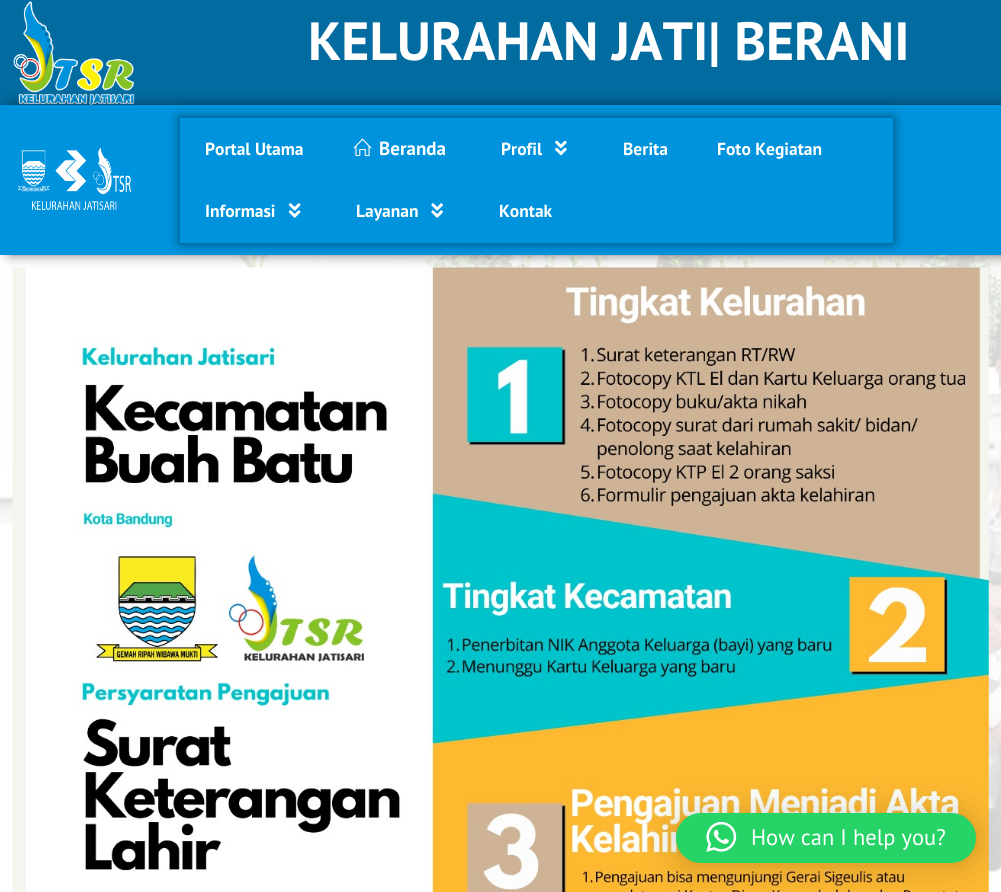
import math
import cairo

surface = cairo.ImageSurface(cairo.FORMAT_RGB24, 1001, 892)
ctx = cairo.Context(surface)
options = cairo.FontOptions()
options.set_hint_metrics(cairo.HINT_METRICS_OFF)
options.set_hint_style(cairo.HINT_STYLE_NONE)
ctx.set_font_options(options)
ctx.set_miter_limit(4)


def round_rect(x, y, w, h, r):
    ctx.new_sub_path()
    for i, (u, v) in enumerate([(x + w - r, y + h - r), (x + r, y + h - r), (x + r, y + r), (x + w - r, y + r)]):
        ctx.arc(u, v, r, i * math.pi / 2, (i + 1) * math.pi / 2)
    ctx.close_path()


def shadow(x, y, w, h, r, blur, alpha):
    ctx.push_group_with_content(cairo.CONTENT_ALPHA)
    ctx.set_operator(cairo.OPERATOR_SOURCE)
    for i in range(15, -16, -2):
        e = blur * i / 6
        if min(w, h) + 2 * e > 0:
            ctx.set_source_rgba(0, 0, 0, alpha * math.erfc((i - 1) / 8.5) / 2)
            round_rect(x - e, y - e, w + 2 * e, h + 2 * e, max(0, min(r + e + blur * .6, min(w, h) / 2 + e)))
            ctx.fill()
    ctx.mask(ctx.pop_group())


def picture(path, x, y, w, h):
    ctx.save()
    ctx.set_source_surface(cairo.ImageSurface.create_from_png(path), x, y)
    ctx.rectangle(x, y, w, h)
    ctx.fill()
    ctx.restore()


ctx.set_source_rgb(1, 1, 1)
ctx.paint()
picture("img1.png", 0, 255, 1001, 637)
ctx.set_source_rgb(0.008, 0.42, 0.627)
ctx.rectangle(0, 0, 1001, 105)
ctx.fill()
picture("img2.png", 13, 1, 122, 104)
ctx.select_font_face("PT Sans", cairo.FONT_SLANT_NORMAL, cairo.FONT_WEIGHT_BOLD)
ctx.set_font_size(53.75)
ctx.set_source_rgb(1, 1, 1)
ctx.move_to(308, 60)
ctx.show_text("KELURAHAN JATI| BERANI")
picture("img8.png", 12, 267, 977, 625)
ctx.set_source_rgb(0, 0, 0)
shadow(10, 105, 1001, 150, 0, 6, 0.5)
ctx.set_source_rgb(0, 0.576, 0.867)
ctx.rectangle(0, 105, 1001, 150)
ctx.fill()
picture("img3.png", 17, 147, 114, 63)
ctx.set_source_rgb(0, 0, 0)
shadow(180, 118, 713, 125, 0, 6, 0.5)
ctx.set_source_rgb(0, 0.576, 0.867)
ctx.rectangle(180, 118, 713, 125)
ctx.fill()
ctx.set_font_size(17.5)
ctx.set_source_rgb(1, 1, 1)
ctx.move_to(205, 155)
ctx.show_text("Portal Utama")
picture("img4.png", 353, 138, 19, 19)
ctx.set_font_size(19)
ctx.move_to(379, 155)
ctx.show_text("Beranda")
ctx.set_font_size(17.5)
ctx.move_to(501, 155)
ctx.show_text("Profil")
picture("img5.png", 555, 140, 12, 16)
ctx.move_to(623, 155)
ctx.show_text("Berita")
ctx.move_to(717, 155)
ctx.show_text("Foto Kegiatan")
ctx.move_to(205, 217)
ctx.show_text("Informasi")
picture("img6.png", 288, 203, 13, 15)
ctx.move_to(356, 217)
ctx.show_text("Layanan")
picture("img7.png", 431, 203, 12, 15)
ctx.move_to(499, 217)
ctx.show_text("Kontak")
ctx.set_source_rgb(0, 0, 0)
shadow(676, 815, 300, 50, 25, 20, 0.16)
shadow(676, 814, 300, 50, 25, 4, 0.06)
ctx.set_source_rgb(0.145, 0.827, 0.4)
round_rect(676, 813, 300, 50, 25)
ctx.fill()
picture("img9.png", 706, 821, 31, 31)
ctx.select_font_face("PT Sans")
ctx.set_font_size(22.5)
ctx.set_source_rgb(1, 1, 1)
ctx.move_to(751, 845)
ctx.show_text("How can I help you?")
surface.write_to_png("page.png")
